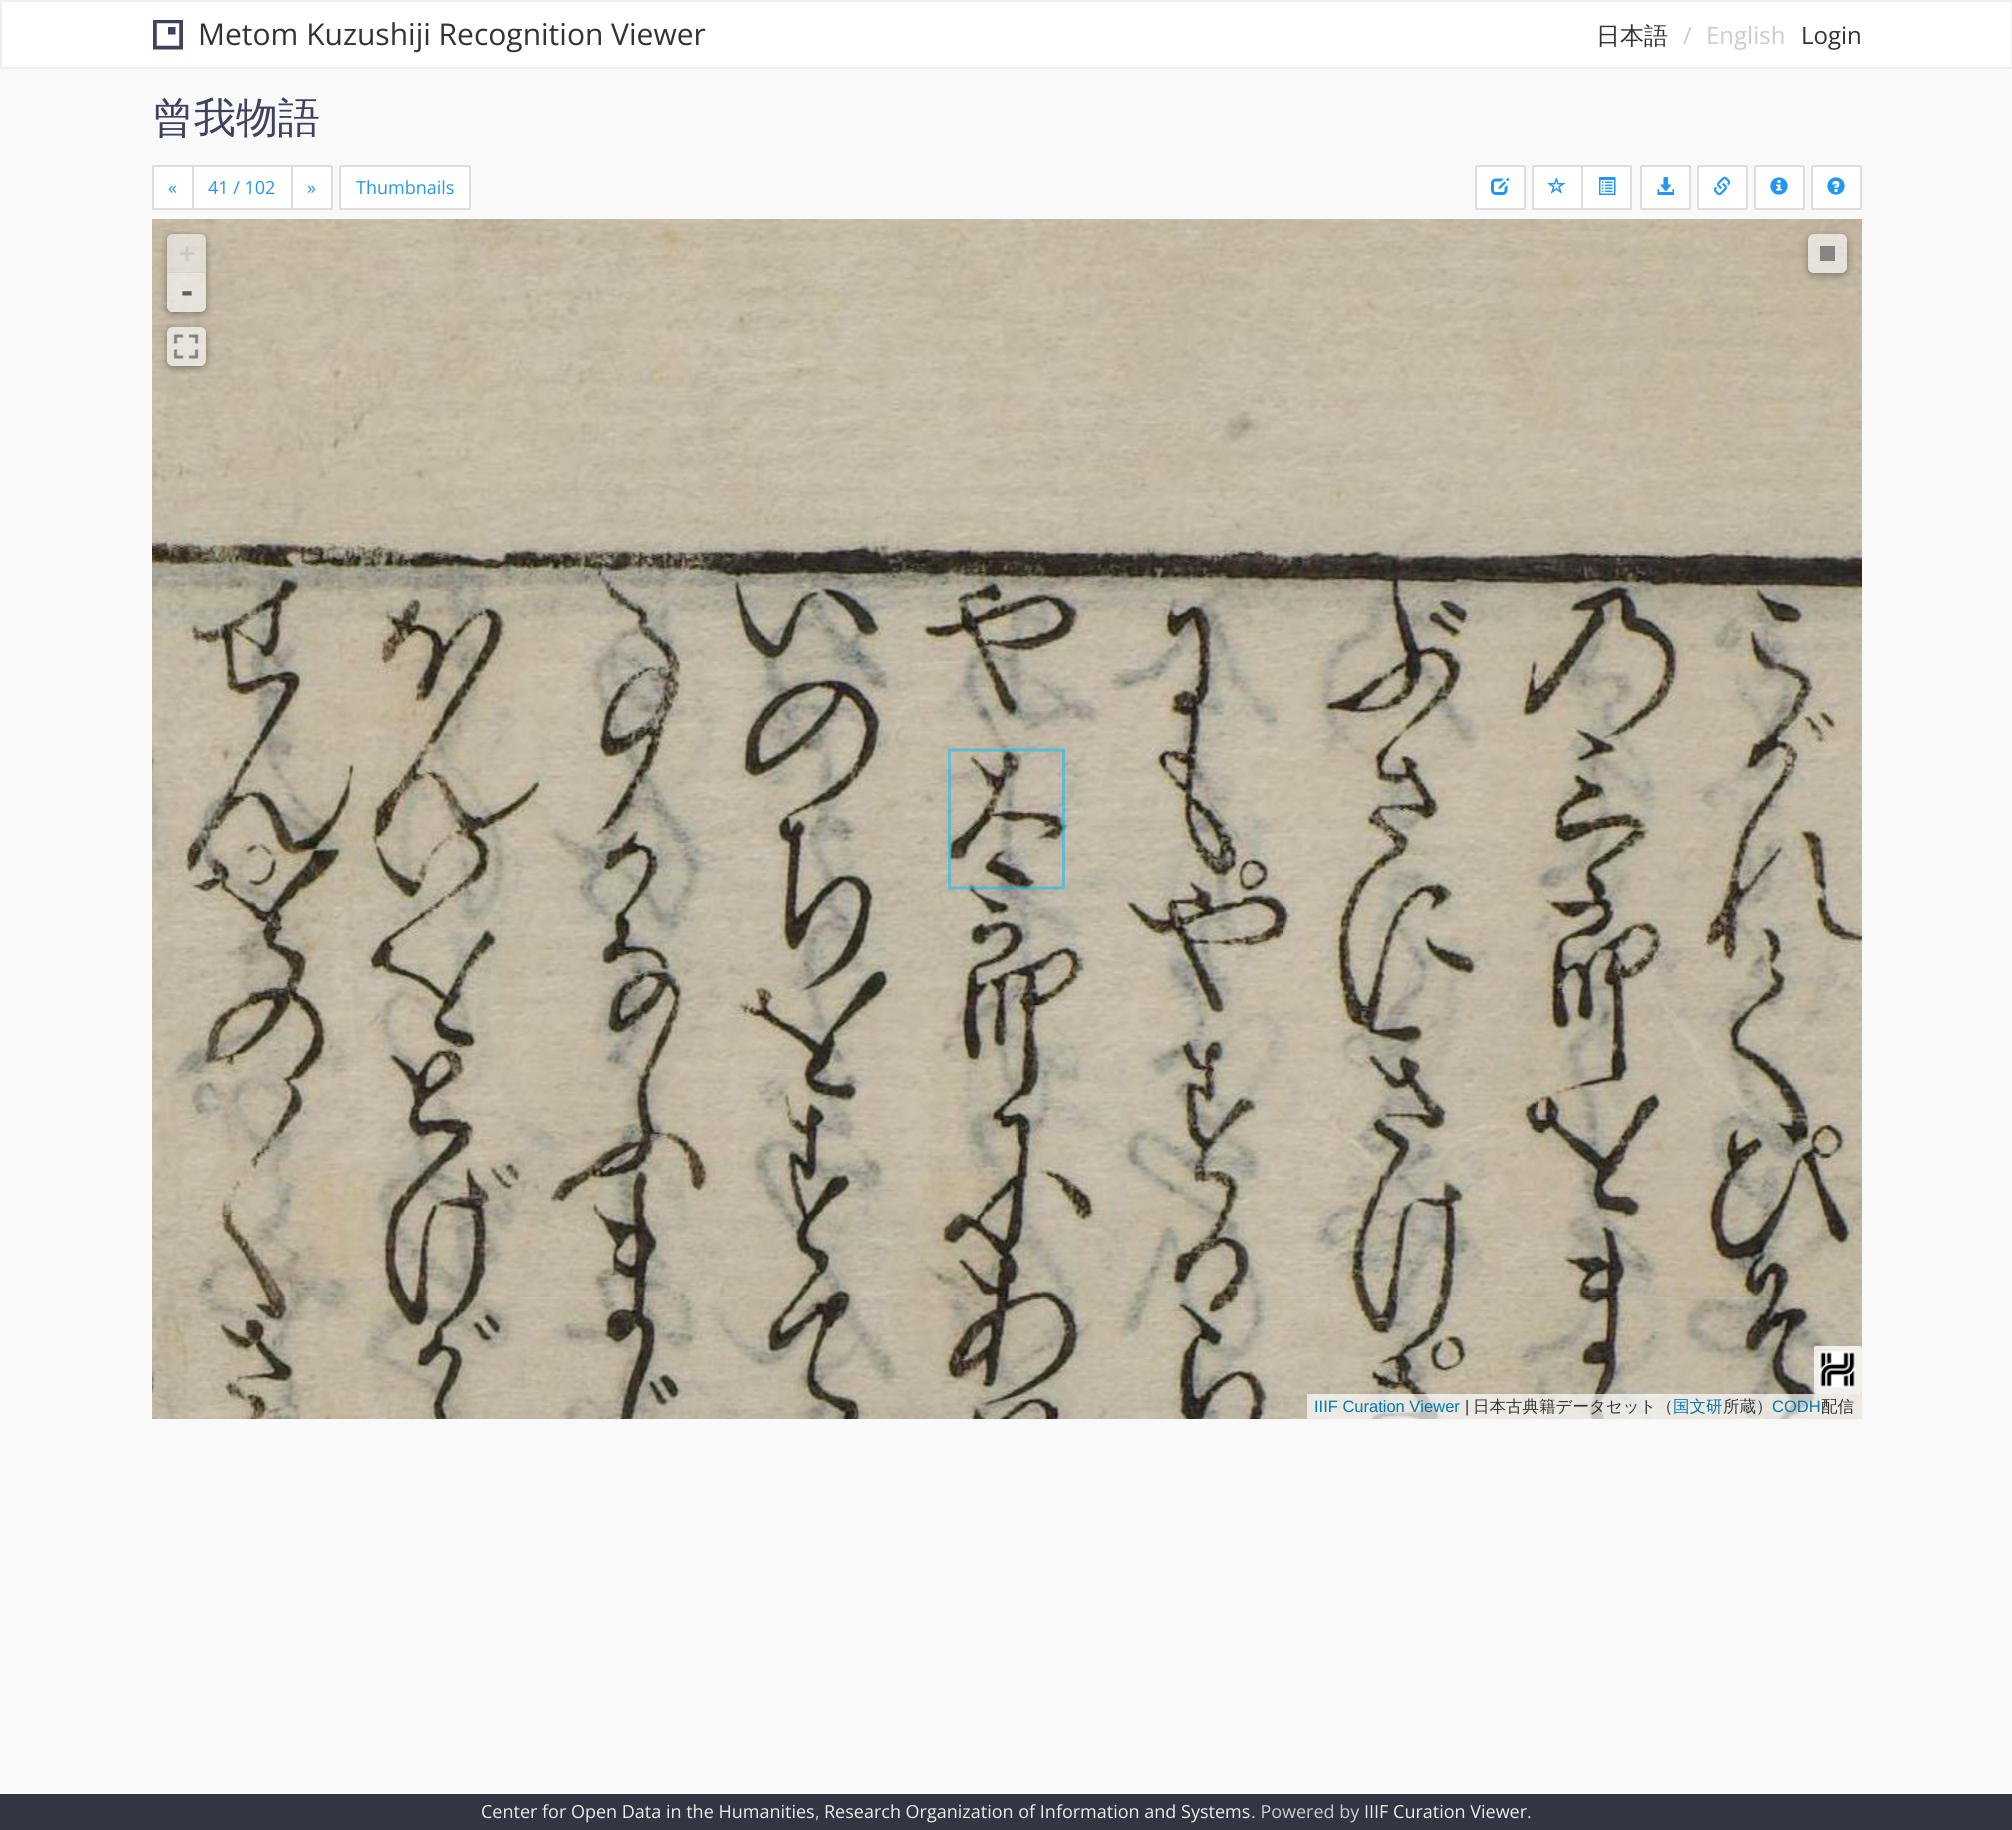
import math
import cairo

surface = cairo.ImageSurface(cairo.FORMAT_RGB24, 2012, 1830)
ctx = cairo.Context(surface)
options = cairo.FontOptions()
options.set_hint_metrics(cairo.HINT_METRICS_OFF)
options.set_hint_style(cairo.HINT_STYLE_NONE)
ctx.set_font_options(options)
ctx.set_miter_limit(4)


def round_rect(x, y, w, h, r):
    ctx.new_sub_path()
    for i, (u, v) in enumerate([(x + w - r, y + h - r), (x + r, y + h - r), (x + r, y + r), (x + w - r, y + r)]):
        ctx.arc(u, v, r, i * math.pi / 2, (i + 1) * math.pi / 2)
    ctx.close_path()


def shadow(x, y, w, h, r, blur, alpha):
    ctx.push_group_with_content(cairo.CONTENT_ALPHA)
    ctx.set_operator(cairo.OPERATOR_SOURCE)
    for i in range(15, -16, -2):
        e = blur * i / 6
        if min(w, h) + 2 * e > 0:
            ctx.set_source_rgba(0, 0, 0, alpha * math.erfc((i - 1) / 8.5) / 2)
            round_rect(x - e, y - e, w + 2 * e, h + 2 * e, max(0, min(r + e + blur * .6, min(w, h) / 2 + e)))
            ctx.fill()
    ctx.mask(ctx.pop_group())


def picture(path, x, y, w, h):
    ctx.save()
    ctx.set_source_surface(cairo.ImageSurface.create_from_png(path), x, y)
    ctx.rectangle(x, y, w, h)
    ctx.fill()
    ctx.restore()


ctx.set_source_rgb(0.976, 0.976, 0.976)
ctx.paint()
ctx.set_source_rgb(1, 1, 1)
round_rect(1, 1, 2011, 67, 2)
ctx.fill_preserve()
ctx.set_source_rgb(0.933, 0.933, 0.933)
ctx.stroke()
picture("img1.png", 153, 20, 30, 30)
ctx.select_font_face("Open Sans")
ctx.set_font_size(30)
ctx.set_source_rgb(0.2, 0.2, 0.2)
ctx.move_to(198, 45)
ctx.show_text("Metom Kuzushiji Recognition Viewer")
ctx.select_font_face("WenQuanYi Zen Hei Medium")
ctx.set_font_size(24)
ctx.move_to(1596, 44)
ctx.show_text("日本語")
ctx.select_font_face("Open Sans")
ctx.set_source_rgb(0.8, 0.8, 0.8)
ctx.move_to(1683, 44)
ctx.show_text("/")
ctx.move_to(1706, 44)
ctx.show_text("English")
ctx.set_source_rgb(0.2, 0.2, 0.2)
ctx.move_to(1801, 44)
ctx.show_text("Login")
ctx.select_font_face("WenQuanYi Zen Hei Medium")
ctx.set_font_size(42)
ctx.set_source_rgb(0.247, 0.255, 0.369)
ctx.move_to(152, 132)
ctx.show_text("曾我物語")
ctx.set_source_rgb(1, 1, 1)
ctx.new_path()
ctx.move_to(153.5, 166)
ctx.line_to(193, 166)
ctx.line_to(193, 209)
ctx.line_to(153.5, 209)
ctx.curve_to(153, 209, 153, 209, 153, 208.5)
ctx.line_to(153, 166.5)
ctx.curve_to(153, 166, 153, 166, 153.5, 166)
ctx.close_path()
ctx.fill_preserve()
ctx.set_source_rgb(0.867, 0.867, 0.867)
ctx.stroke()
ctx.select_font_face("Open Sans")
ctx.set_font_size(18)
ctx.set_source_rgb(0.129, 0.588, 0.953)
ctx.move_to(168, 194)
ctx.show_text("«")
ctx.set_source_rgb(1, 1, 1)
ctx.rectangle(193, 166, 99, 43)
ctx.fill_preserve()
ctx.set_source_rgb(0.867, 0.867, 0.867)
ctx.stroke()
ctx.set_source_rgb(0.129, 0.588, 0.953)
ctx.move_to(208, 194)
ctx.show_text("41 / 102")
ctx.set_source_rgb(1, 1, 1)
ctx.new_path()
ctx.move_to(292, 166)
ctx.line_to(331.5, 166)
ctx.curve_to(332, 166, 332, 166, 332, 166.5)
ctx.line_to(332, 208.5)
ctx.curve_to(332, 209, 332, 209, 331.5, 209)
ctx.line_to(292, 209)
ctx.close_path()
ctx.fill_preserve()
ctx.set_source_rgb(0.867, 0.867, 0.867)
ctx.stroke()
ctx.set_source_rgb(0.129, 0.588, 0.953)
ctx.move_to(307, 194)
ctx.show_text("»")
ctx.set_source_rgb(1, 1, 1)
round_rect(340, 166, 130, 43, 0.5)
ctx.fill_preserve()
ctx.set_source_rgb(0.867, 0.867, 0.867)
ctx.stroke()
ctx.set_source_rgb(0.129, 0.588, 0.953)
ctx.move_to(356, 194)
ctx.show_text("Thumbnails")
ctx.set_source_rgb(1, 1, 1)
round_rect(1476, 166, 49, 43, 0.5)
ctx.fill_preserve()
ctx.set_source_rgb(0.867, 0.867, 0.867)
ctx.stroke()
picture("img2.png", 1491, 178, 19, 17)
ctx.set_source_rgb(1, 1, 1)
ctx.new_path()
ctx.move_to(1533.5, 166)
ctx.line_to(1582, 166)
ctx.line_to(1582, 209)
ctx.line_to(1533.5, 209)
ctx.curve_to(1533, 209, 1533, 209, 1533, 208.5)
ctx.line_to(1533, 166.5)
ctx.curve_to(1533, 166, 1533, 166, 1533.5, 166)
ctx.close_path()
ctx.fill_preserve()
ctx.set_source_rgb(0.867, 0.867, 0.867)
ctx.stroke()
picture("img3.png", 1547, 177, 19, 17)
ctx.set_source_rgb(1, 1, 1)
ctx.new_path()
ctx.move_to(1582, 166)
ctx.line_to(1630.5, 166)
ctx.curve_to(1631, 166, 1631, 166, 1631, 166.5)
ctx.line_to(1631, 208.5)
ctx.curve_to(1631, 209, 1631, 209, 1630.5, 209)
ctx.line_to(1582, 209)
ctx.close_path()
ctx.fill_preserve()
ctx.set_source_rgb(0.867, 0.867, 0.867)
ctx.stroke()
picture("img4.png", 1599, 177, 17, 18)
ctx.set_source_rgb(1, 1, 1)
round_rect(1641, 166, 49, 43, 0.5)
ctx.fill_preserve()
ctx.set_source_rgb(0.867, 0.867, 0.867)
ctx.stroke()
picture("img5.png", 1657, 177, 17, 18)
ctx.set_source_rgb(1, 1, 1)
round_rect(1698, 166, 49, 43, 0.5)
ctx.fill_preserve()
ctx.set_source_rgb(0.867, 0.867, 0.867)
ctx.stroke()
picture("img6.png", 1713, 176, 18, 20)
ctx.set_source_rgb(1, 1, 1)
round_rect(1755, 166, 49, 43, 0.5)
ctx.fill_preserve()
ctx.set_source_rgb(0.867, 0.867, 0.867)
ctx.stroke()
picture("img7.png", 1770, 177, 18, 18)
ctx.set_source_rgb(1, 1, 1)
round_rect(1812, 166, 49, 43, 0.5)
ctx.fill_preserve()
ctx.set_source_rgb(0.867, 0.867, 0.867)
ctx.stroke()
picture("img8.png", 1827, 177, 18, 18)
picture("img9.png", 152, 219, 1131, 1079)
picture("img10.png", 1283, 219, 579, 1079)
picture("img11.png", 152, 1297, 1131, 122)
picture("img12.png", 152, 1297, 1131, 1)
picture("img13.png", 159, 1297, 1118, 1)
picture("img14.png", 1283, 1297, 579, 122)
picture("img15.png", 1283, 1297, 579, 1)
picture("img16.png", 1283, 1297, 579, 1)
ctx.new_path()
ctx.move_to(949.5, 888)
ctx.line_to(949.5, 750)
ctx.line_to(1063.5, 750)
ctx.line_to(1063.5, 888)
ctx.close_path()
ctx.set_source_rgba(0, 0.749, 1, 0.5)
ctx.set_line_width(3)
ctx.set_line_cap(cairo.LINE_CAP_ROUND)
ctx.set_line_join(cairo.LINE_JOIN_ROUND)
ctx.stroke()
ctx.save()
ctx.set_fill_rule(cairo.FILL_RULE_EVEN_ODD)
ctx.new_path()
ctx.move_to(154, 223)
ctx.line_to(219, 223)
ctx.line_to(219, 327)
ctx.line_to(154, 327)
ctx.close_path()
ctx.move_to(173, 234)
ctx.line_to(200, 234)
ctx.curve_to(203.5, 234, 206, 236.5, 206, 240)
ctx.line_to(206, 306)
ctx.curve_to(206, 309.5, 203.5, 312, 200, 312)
ctx.line_to(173, 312)
ctx.curve_to(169.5, 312, 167, 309.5, 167, 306)
ctx.line_to(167, 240)
ctx.curve_to(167, 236.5, 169.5, 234, 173, 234)
ctx.close_path()
ctx.clip()
ctx.set_source_rgb(0, 0, 0)
shadow(167, 236, 39, 78, 6, 4, 0.38)
ctx.restore()
ctx.set_source_rgba(0.957, 0.957, 0.957, 0.59)
ctx.new_path()
ctx.move_to(173, 234)
ctx.line_to(200, 234)
ctx.curve_to(203.5, 234, 206, 236.5, 206, 240)
ctx.line_to(206, 273)
ctx.line_to(167, 273)
ctx.line_to(167, 240)
ctx.curve_to(167, 236.5, 169.5, 234, 173, 234)
ctx.close_path()
ctx.fill()
ctx.set_source_rgba(0.8, 0.8, 0.8, 0.59)
ctx.rectangle(167, 272, 39, 2)
ctx.fill()
ctx.select_font_face("DejaVu Sans Mono", cairo.FONT_SLANT_NORMAL, cairo.FONT_WEIGHT_BOLD)
ctx.set_font_size(27)
ctx.set_source_rgb(0.796, 0.788, 0.773)
ctx.move_to(179, 262)
ctx.show_text("+")
ctx.set_source_rgba(1, 1, 1, 0.59)
ctx.new_path()
ctx.move_to(167, 273)
ctx.line_to(206, 273)
ctx.line_to(206, 306)
ctx.curve_to(206, 309.5, 203.5, 312, 200, 312)
ctx.line_to(173, 312)
ctx.curve_to(169.5, 312, 167, 309.5, 167, 306)
ctx.close_path()
ctx.fill()
ctx.set_font_size(30)
ctx.set_source_rgb(0.373, 0.365, 0.353)
ctx.move_to(178, 302)
ctx.show_text("-")
ctx.save()
ctx.set_fill_rule(cairo.FILL_RULE_EVEN_ODD)
ctx.new_path()
ctx.move_to(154, 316)
ctx.line_to(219, 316)
ctx.line_to(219, 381)
ctx.line_to(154, 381)
ctx.close_path()
ctx.move_to(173, 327)
ctx.line_to(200, 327)
ctx.curve_to(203.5, 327, 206, 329.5, 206, 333)
ctx.line_to(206, 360)
ctx.curve_to(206, 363.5, 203.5, 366, 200, 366)
ctx.line_to(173, 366)
ctx.curve_to(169.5, 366, 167, 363.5, 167, 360)
ctx.line_to(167, 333)
ctx.curve_to(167, 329.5, 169.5, 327, 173, 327)
ctx.close_path()
ctx.clip()
ctx.set_source_rgb(0, 0, 0)
shadow(167, 329, 39, 39, 6, 4, 0.38)
ctx.restore()
ctx.set_source_rgba(1, 1, 1, 0.59)
round_rect(167, 327, 39, 39, 6)
ctx.fill()
picture("img17.png", 173, 334, 26, 25)
ctx.save()
ctx.set_fill_rule(cairo.FILL_RULE_EVEN_ODD)
ctx.new_path()
ctx.move_to(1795, 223)
ctx.line_to(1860, 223)
ctx.line_to(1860, 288)
ctx.line_to(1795, 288)
ctx.close_path()
ctx.move_to(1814, 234)
ctx.line_to(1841, 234)
ctx.curve_to(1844.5, 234, 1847, 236.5, 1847, 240)
ctx.line_to(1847, 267)
ctx.curve_to(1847, 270.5, 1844.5, 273, 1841, 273)
ctx.line_to(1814, 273)
ctx.curve_to(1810.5, 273, 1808, 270.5, 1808, 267)
ctx.line_to(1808, 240)
ctx.curve_to(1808, 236.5, 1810.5, 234, 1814, 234)
ctx.close_path()
ctx.clip()
ctx.set_source_rgb(0, 0, 0)
shadow(1808, 236, 39, 39, 6, 4, 0.38)
ctx.restore()
round_rect(1808, 234, 39, 39, 6)
ctx.fill()
ctx.set_source_rgba(0.275, 0.275, 0.275, 0.59)
ctx.rectangle(1820, 246, 15, 15)
ctx.fill()
ctx.set_source_rgba(1, 1, 1, 0.7)
round_rect(1814, 1346, 48, 48, 3)
ctx.fill()
picture("img18.png", 1819, 1351, 37, 37)
ctx.rectangle(1817, 1349, 42, 42)
ctx.set_source_rgba(1, 1, 1, 0.3)
ctx.set_line_width(6)
ctx.set_line_cap(cairo.LINE_CAP_BUTT)
ctx.set_line_join(cairo.LINE_JOIN_MITER)
ctx.stroke()
ctx.set_source_rgba(1, 1, 1, 0.7)
ctx.rectangle(1307, 1394, 555, 25)
ctx.fill()
ctx.select_font_face("Liberation Sans")
ctx.set_font_size(16.5)
ctx.set_source_rgb(0, 0.471, 0.659)
ctx.move_to(1314, 1412)
ctx.show_text("IIIF Curation Viewer")
ctx.set_source_rgb(0.2, 0.2, 0.2)
ctx.move_to(1465, 1412)
ctx.show_text("|")
ctx.select_font_face("WenQuanYi Zen Hei Medium")
ctx.move_to(1473, 1412)
ctx.show_text("日本古典籍データセット（")
ctx.set_source_rgb(0, 0.471, 0.659)
ctx.move_to(1673, 1412)
ctx.show_text("国文研")
ctx.set_source_rgb(0.2, 0.2, 0.2)
ctx.move_to(1723, 1412)
ctx.show_text("所蔵）")
ctx.select_font_face("Liberation Sans")
ctx.set_source_rgb(0, 0.471, 0.659)
ctx.move_to(1772, 1412)
ctx.show_text("CODH")
ctx.select_font_face("WenQuanYi Zen Hei Medium")
ctx.set_source_rgb(0.2, 0.2, 0.2)
ctx.move_to(1821, 1412)
ctx.show_text("配信")
ctx.set_source_rgb(0.192, 0.212, 0.259)
ctx.rectangle(0, 1794, 2012, 36)
ctx.fill()
ctx.select_font_face("Open Sans")
ctx.set_font_size(18)
ctx.set_source_rgb(0.933, 0.933, 0.933)
ctx.move_to(481, 1818)
ctx.show_text("Center for Open Data in the Humanities")
ctx.set_source_rgb(0.8, 0.8, 0.8)
ctx.move_to(815, 1818)
ctx.show_text(",")
ctx.set_source_rgb(0.933, 0.933, 0.933)
ctx.move_to(824, 1818)
ctx.show_text("Research Organization of Information and Systems")
ctx.set_source_rgb(0.8, 0.8, 0.8)
ctx.move_to(1251, 1818)
ctx.show_text(". Powered by")
ctx.set_source_rgb(0.933, 0.933, 0.933)
ctx.move_to(1364, 1818)
ctx.show_text("IIIF Curation Viewer")
ctx.set_source_rgb(0.8, 0.8, 0.8)
ctx.move_to(1527, 1818)
ctx.show_text(".")
surface.write_to_png("page.png")
